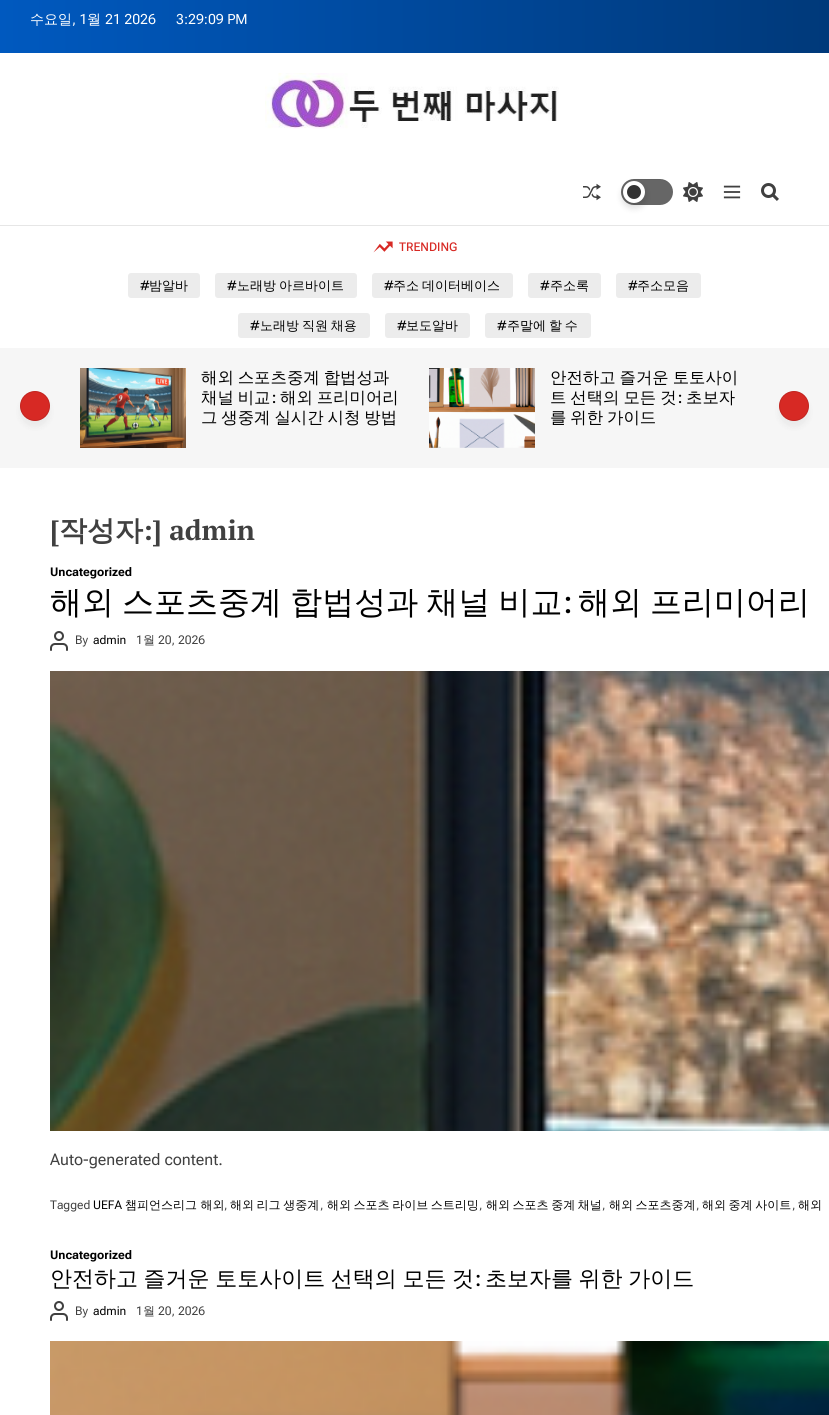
import math
import cairo

surface = cairo.ImageSurface(cairo.FORMAT_RGB24, 829, 1415)
ctx = cairo.Context(surface)
options = cairo.FontOptions()
options.set_hint_metrics(cairo.HINT_METRICS_OFF)
options.set_hint_style(cairo.HINT_STYLE_NONE)
ctx.set_font_options(options)
ctx.set_miter_limit(4)


def spaced_text(x, y, s, letter, word):
    ctx.move_to(x, y)
    for ch in s:
        ctx.show_text(ch)
        ctx.rel_move_to(letter + word * (ch == ' '), 0)


def round_rect(x, y, w, h, r):
    ctx.new_sub_path()
    for i, (u, v) in enumerate([(x + w - r, y + h - r), (x + r, y + h - r), (x + r, y + r), (x + w - r, y + r)]):
        ctx.arc(u, v, r, i * math.pi / 2, (i + 1) * math.pi / 2)
    ctx.close_path()


def shadow(x, y, w, h, r, blur, alpha):
    ctx.push_group_with_content(cairo.CONTENT_ALPHA)
    ctx.set_operator(cairo.OPERATOR_SOURCE)
    for i in range(15, -16, -2):
        e = blur * i / 6
        if min(w, h) + 2 * e > 0:
            ctx.set_source_rgba(0, 0, 0, alpha * math.erfc((i - 1) / 8.5) / 2)
            round_rect(x - e, y - e, w + 2 * e, h + 2 * e, max(0, min(r + e + blur * .6, min(w, h) / 2 + e)))
            ctx.fill()
    ctx.mask(ctx.pop_group())


def picture(path, x, y, w, h):
    ctx.save()
    ctx.set_source_surface(cairo.ImageSurface.create_from_png(path), x, y)
    ctx.rectangle(x, y, w, h)
    ctx.fill()
    ctx.restore()


ctx.set_source_rgb(1, 1, 1)
ctx.paint()
ctx.set_source_rgb(0.902, 0.902, 0.902)
ctx.rectangle(0, 225, 829, 1)
ctx.fill()
gradient = cairo.LinearGradient(0, 27, 829, 26)
gradient.add_color_stop_rgba(0, 0, 0.349, 0.749, 1)
gradient.add_color_stop_rgba(1, 0, 0.224, 0.478, 1)
ctx.set_source(gradient)
ctx.rectangle(0, 0, 829, 53)
ctx.fill()
ctx.select_font_face("WenQuanYi Zen Hei Medium")
ctx.set_font_size(14)
ctx.set_source_rgb(1, 1, 1)
ctx.move_to(30, 24)
ctx.show_text("수요일")
ctx.select_font_face("Roboto Flex")
ctx.move_to(72, 24)
ctx.show_text(", 1")
ctx.select_font_face("WenQuanYi Zen Hei Medium")
ctx.move_to(87, 24)
ctx.show_text("월")
ctx.select_font_face("Roboto Flex")
ctx.move_to(105, 24)
ctx.show_text("21 2026")
ctx.move_to(176, 24)
ctx.show_text("3:29:09 PM")
picture("img1.png", 265, 73, 294, 56)
picture("img2.png", 583, 183, 18, 18)
ctx.set_source_rgb(0.4, 0.4, 0.4)
round_rect(621, 179, 52, 26, 13)
ctx.fill()
ctx.set_source_rgba(0, 0, 0, 0.05)
ctx.new_path()
ctx.move_to(634, 180)
ctx.line_to(660, 180)
ctx.curve_to(667, 180, 673, 186, 673, 193)
ctx.curve_to(673, 190, 672, 187, 671, 185)
ctx.curve_to(666, 177, 655, 179, 647, 179)
ctx.curve_to(639, 179, 628, 177, 623, 185)
ctx.curve_to(622, 187, 621, 190, 621, 193)
ctx.curve_to(621, 186, 627, 180, 634, 180)
ctx.close_path()
ctx.fill()
ctx.set_source_rgb(0, 0, 0)
shadow(623, 185, 22, 22, 11, 4, 0.16)
ctx.set_source_rgb(0.2, 0.2, 0.2)
ctx.arc(634, 192, 9, 0, 2 * math.pi)
ctx.fill_preserve()
ctx.set_source_rgb(1, 1, 1)
ctx.set_line_width(4)
ctx.stroke()
picture("img3.png", 683, 182, 20, 20)
picture("img4.png", 723, 185, 18, 14)
picture("img5.png", 761, 183, 18, 18)
picture("img6.png", 373, 241, 20, 12)
ctx.select_font_face("Roboto Flex Medium")
ctx.set_font_size(12)
ctx.set_source_rgb(0.843, 0.161, 0.141)
ctx.move_to(399, 251)
ctx.show_text("TRENDING")
ctx.set_source_rgb(0.922, 0.922, 0.922)
round_rect(128, 273, 72, 25, 3)
ctx.fill()
ctx.set_font_size(13)
ctx.set_source_rgb(0, 0, 0)
ctx.move_to(140, 290)
ctx.show_text("#")
ctx.select_font_face("WenQuanYi Zen Hei Medium")
ctx.move_to(149, 290)
ctx.show_text("밤알바")
ctx.set_source_rgb(0.922, 0.922, 0.922)
round_rect(215, 273, 142, 25, 3)
ctx.fill()
ctx.select_font_face("Roboto Flex Medium")
ctx.set_source_rgb(0, 0, 0)
ctx.move_to(227, 290)
ctx.show_text("#")
ctx.select_font_face("WenQuanYi Zen Hei Medium")
spaced_text(237, 290, "노래방 아르바이트", 0, -1)
ctx.set_source_rgb(0.922, 0.922, 0.922)
round_rect(372, 273, 141, 25, 3)
ctx.fill()
ctx.select_font_face("Roboto Flex Medium")
ctx.set_source_rgb(0, 0, 0)
ctx.move_to(384, 290)
ctx.show_text("#")
ctx.select_font_face("WenQuanYi Zen Hei Medium")
spaced_text(393, 290, "주소 데이터베이스", 0, -1)
ctx.set_source_rgb(0.922, 0.922, 0.922)
round_rect(528, 273, 73, 25, 3)
ctx.fill()
ctx.select_font_face("Roboto Flex Medium")
ctx.set_source_rgb(0, 0, 0)
ctx.move_to(540, 290)
ctx.show_text("#")
ctx.select_font_face("WenQuanYi Zen Hei Medium")
ctx.move_to(550, 290)
ctx.show_text("주소록")
ctx.set_source_rgb(0.922, 0.922, 0.922)
round_rect(616, 273, 85, 25, 3)
ctx.fill()
ctx.select_font_face("Roboto Flex Medium")
ctx.set_source_rgb(0, 0, 0)
ctx.move_to(628, 290)
ctx.show_text("#")
ctx.select_font_face("WenQuanYi Zen Hei Medium")
ctx.move_to(637, 290)
ctx.show_text("주소모음")
ctx.set_source_rgb(0.922, 0.922, 0.922)
round_rect(238, 313, 132, 25, 3)
ctx.fill()
ctx.select_font_face("Roboto Flex Medium")
ctx.set_source_rgb(0, 0, 0)
ctx.move_to(250, 330)
ctx.show_text("#")
ctx.select_font_face("WenQuanYi Zen Hei Medium")
spaced_text(260, 330, "노래방 직원 채용", 0, -1)
ctx.set_source_rgb(0.922, 0.922, 0.922)
round_rect(385, 313, 85, 25, 3)
ctx.fill()
ctx.select_font_face("Roboto Flex Medium")
ctx.set_source_rgb(0, 0, 0)
ctx.move_to(397, 330)
ctx.show_text("#")
ctx.select_font_face("WenQuanYi Zen Hei Medium")
ctx.move_to(406, 330)
ctx.show_text("보도알바")
ctx.set_source_rgb(0.922, 0.922, 0.922)
round_rect(485, 313, 106, 25, 3)
ctx.fill()
ctx.select_font_face("Roboto Flex Medium")
ctx.set_source_rgb(0, 0, 0)
ctx.move_to(497, 330)
ctx.show_text("#")
ctx.select_font_face("WenQuanYi Zen Hei Medium")
spaced_text(507, 330, "주말에 할 수", 0, -1)
ctx.set_source_rgb(0.961, 0.961, 0.961)
ctx.rectangle(0, 348, 829, 120)
ctx.fill()
ctx.set_source_rgb(0, 0, 0)
shadow(20, 397, 30, 30, 15, 3, 0.05)
ctx.set_source_rgb(0.843, 0.161, 0.141)
ctx.arc(35, 406, 15, 0, 2 * math.pi)
ctx.fill()
ctx.arc(35, 406, 14.5, 0, 2 * math.pi)
ctx.set_source_rgba(0, 0, 0, 0.1)
ctx.set_line_width(1)
ctx.stroke()
picture("img7.png", 80, 368, 106, 80)
ctx.set_font_size(16.4)
ctx.set_source_rgb(0, 0, 0)
spaced_text(201, 383, "해외 스포츠중계 합법성과", 0, -1)
spaced_text(201, 403, "채널 비교", 0, -1)
ctx.select_font_face("PT Serif")
ctx.move_to(271, 403)
ctx.show_text(":")
ctx.select_font_face("WenQuanYi Zen Hei Medium")
spaced_text(280, 403, "해외 프리미어리", 0, -1)
spaced_text(201, 423, "그 생중계 실시간 시청 방법", 0, -1)
picture("img8.png", 429, 368, 106, 80)
spaced_text(550, 383, "안전하고 즐거운 토토사이", 0, -1)
spaced_text(550, 403, "트 선택의 모든 것", 0, -1)
ctx.select_font_face("PT Serif")
ctx.move_to(677, 403)
ctx.show_text(":")
ctx.select_font_face("WenQuanYi Zen Hei Medium")
ctx.move_to(686, 403)
ctx.show_text("초보자")
spaced_text(550, 423, "를 위한 가이드", 0, -1)
ctx.set_source_rgb(0, 0, 0)
shadow(779, 397, 30, 30, 15, 3, 0.05)
ctx.set_source_rgb(0.843, 0.161, 0.141)
ctx.arc(794, 406, 15, 0, 2 * math.pi)
ctx.fill()
ctx.arc(794, 406, 14.5, 0, 2 * math.pi)
ctx.set_source_rgba(0, 0, 0, 0.1)
ctx.stroke()
ctx.select_font_face("PT Serif", cairo.FONT_SLANT_NORMAL, cairo.FONT_WEIGHT_BOLD)
ctx.set_font_size(28)
ctx.set_source_rgb(0.251, 0.251, 0.251)
ctx.move_to(50, 540)
ctx.show_text("[")
ctx.select_font_face("WenQuanYi Zen Hei", cairo.FONT_SLANT_NORMAL, cairo.FONT_WEIGHT_BOLD)
ctx.move_to(59, 540)
ctx.show_text("작성자")
ctx.select_font_face("PT Serif", cairo.FONT_SLANT_NORMAL, cairo.FONT_WEIGHT_BOLD)
ctx.move_to(143, 540)
ctx.show_text(":] admin")
ctx.select_font_face("Roboto Flex", cairo.FONT_SLANT_NORMAL, cairo.FONT_WEIGHT_BOLD)
ctx.set_font_size(12)
ctx.set_source_rgb(0, 0, 0)
ctx.move_to(50, 576)
ctx.show_text("Uncategorized")
ctx.select_font_face("WenQuanYi Zen Hei Medium")
ctx.set_font_size(32)
spaced_text(50, 613, "해외 스포츠중계 합법성과 채널 비교", 0, -1.5)
ctx.select_font_face("PT Serif")
ctx.move_to(562, 613)
ctx.show_text(":")
ctx.select_font_face("WenQuanYi Zen Hei Medium")
spaced_text(578, 613, "해외 프리미어리", 0, -1.5)
picture("img9.png", 50, 631, 18, 20)
ctx.select_font_face("Roboto Flex")
ctx.set_font_size(12)
ctx.set_source_rgb(0.251, 0.251, 0.251)
ctx.move_to(75, 644)
ctx.show_text("By")
ctx.set_source_rgb(0, 0, 0)
ctx.move_to(93, 644)
ctx.show_text("admin")
ctx.set_source_rgb(0.251, 0.251, 0.251)
ctx.move_to(136, 644)
ctx.show_text("1")
ctx.select_font_face("WenQuanYi Zen Hei Medium")
ctx.move_to(143, 644)
ctx.show_text("월")
ctx.select_font_face("Roboto Flex")
ctx.move_to(158, 644)
ctx.show_text("20, 2026")
picture("img10.png", 50, 671, 779, 460)
ctx.set_font_size(16)
ctx.move_to(50, 1165)
ctx.show_text("Auto-generated content.")
ctx.set_font_size(12)
ctx.move_to(50, 1209)
ctx.show_text("Tagged")
ctx.set_source_rgb(0, 0, 0)
ctx.move_to(93, 1209)
ctx.show_text("UEFA")
ctx.select_font_face("WenQuanYi Zen Hei Medium")
ctx.move_to(125, 1209)
ctx.show_text("챔피언스리그 해외")
ctx.select_font_face("Roboto Flex")
ctx.set_source_rgb(0.251, 0.251, 0.251)
ctx.move_to(224, 1209)
ctx.show_text(",")
ctx.select_font_face("WenQuanYi Zen Hei Medium")
ctx.set_source_rgb(0, 0, 0)
spaced_text(230, 1209, "해외 리그 생중계", 0, -1)
ctx.select_font_face("Roboto Flex")
ctx.set_source_rgb(0.251, 0.251, 0.251)
ctx.move_to(320, 1209)
ctx.show_text(",")
ctx.select_font_face("WenQuanYi Zen Hei Medium")
ctx.set_source_rgb(0, 0, 0)
spaced_text(327, 1209, "해외 스포츠 라이브 스트리밍", 0, -1)
ctx.select_font_face("Roboto Flex")
ctx.set_source_rgb(0.251, 0.251, 0.251)
ctx.move_to(479, 1209)
ctx.show_text(",")
ctx.select_font_face("WenQuanYi Zen Hei Medium")
ctx.set_source_rgb(0, 0, 0)
spaced_text(486, 1209, "해외 스포츠 중계 채널", 0, -1)
ctx.select_font_face("Roboto Flex")
ctx.set_source_rgb(0.251, 0.251, 0.251)
ctx.move_to(602, 1209)
ctx.show_text(",")
ctx.select_font_face("WenQuanYi Zen Hei Medium")
ctx.set_source_rgb(0, 0, 0)
spaced_text(609, 1209, "해외 스포츠중계", 0, -1)
ctx.select_font_face("Roboto Flex")
ctx.set_source_rgb(0.251, 0.251, 0.251)
ctx.move_to(696, 1209)
ctx.show_text(",")
ctx.select_font_face("WenQuanYi Zen Hei Medium")
ctx.set_source_rgb(0, 0, 0)
spaced_text(702, 1209, "해외 중계 사이트", 0, -1)
ctx.select_font_face("Roboto Flex")
ctx.set_source_rgb(0.251, 0.251, 0.251)
ctx.move_to(792, 1209)
ctx.show_text(",")
ctx.select_font_face("WenQuanYi Zen Hei Medium")
ctx.set_source_rgb(0, 0, 0)
spaced_text(798, 1209, "해외", 0, -1)
ctx.select_font_face("Roboto Flex", cairo.FONT_SLANT_NORMAL, cairo.FONT_WEIGHT_BOLD)
ctx.move_to(50, 1259)
ctx.show_text("Uncategorized")
ctx.select_font_face("WenQuanYi Zen Hei Medium")
ctx.set_font_size(22)
spaced_text(50, 1286, "안전하고 즐거운 토토사이트 선택의 모든 것", 0, -1)
ctx.select_font_face("PT Serif")
ctx.move_to(474, 1286)
ctx.show_text(":")
ctx.select_font_face("WenQuanYi Zen Hei Medium")
spaced_text(485, 1286, "초보자를 위한 가이드", 0, -1)
picture("img9.png", 50, 1301, 18, 20)
ctx.select_font_face("Roboto Flex")
ctx.set_font_size(12)
ctx.set_source_rgb(0.251, 0.251, 0.251)
ctx.move_to(75, 1315)
ctx.show_text("By")
ctx.set_source_rgb(0, 0, 0)
ctx.move_to(93, 1315)
ctx.show_text("admin")
ctx.set_source_rgb(0.251, 0.251, 0.251)
ctx.move_to(136, 1315)
ctx.show_text("1")
ctx.select_font_face("WenQuanYi Zen Hei Medium")
ctx.move_to(143, 1315)
ctx.show_text("월")
ctx.select_font_face("Roboto Flex")
ctx.move_to(158, 1315)
ctx.show_text("20, 2026")
picture("img11.png", 50, 1341, 779, 74)
surface.write_to_png("page.png")
